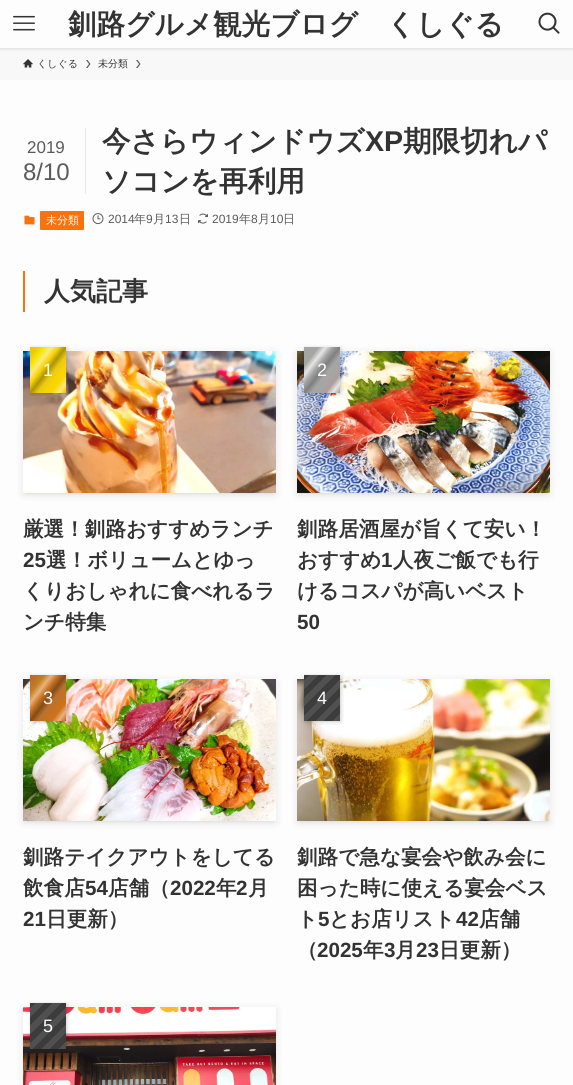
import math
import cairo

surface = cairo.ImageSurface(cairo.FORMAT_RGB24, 573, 1085)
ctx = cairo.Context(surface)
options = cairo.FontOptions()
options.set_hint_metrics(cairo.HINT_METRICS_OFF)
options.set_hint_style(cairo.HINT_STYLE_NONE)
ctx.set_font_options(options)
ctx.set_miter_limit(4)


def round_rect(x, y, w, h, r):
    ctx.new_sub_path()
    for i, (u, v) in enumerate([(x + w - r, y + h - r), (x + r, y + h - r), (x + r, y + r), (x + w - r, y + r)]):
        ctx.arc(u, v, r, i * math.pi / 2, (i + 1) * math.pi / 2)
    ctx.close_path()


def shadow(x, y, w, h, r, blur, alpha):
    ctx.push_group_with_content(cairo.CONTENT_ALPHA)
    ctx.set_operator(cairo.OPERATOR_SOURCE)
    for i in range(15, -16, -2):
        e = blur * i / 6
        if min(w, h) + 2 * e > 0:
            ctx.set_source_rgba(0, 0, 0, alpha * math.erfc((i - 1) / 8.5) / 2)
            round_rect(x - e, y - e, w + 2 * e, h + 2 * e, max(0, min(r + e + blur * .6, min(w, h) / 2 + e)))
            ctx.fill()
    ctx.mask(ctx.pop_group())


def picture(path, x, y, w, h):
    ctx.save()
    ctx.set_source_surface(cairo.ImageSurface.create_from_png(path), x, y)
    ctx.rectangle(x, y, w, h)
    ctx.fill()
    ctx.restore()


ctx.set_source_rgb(0.992, 0.992, 0.992)
ctx.paint()
ctx.set_source_rgb(0.969, 0.969, 0.969)
ctx.rectangle(0, 48, 573, 32)
ctx.fill()
ctx.save()
ctx.rectangle(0, 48, 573, 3)
ctx.clip()
ctx.set_source_rgb(0, 0, 0)
shadow(0, 1, 573, 48, 0, 2, 0.12)
ctx.restore()
picture("img1.png", 13, 15, 22, 16)
ctx.select_font_face("WenQuanYi Zen Hei", cairo.FONT_SLANT_NORMAL, cairo.FONT_WEIGHT_BOLD)
ctx.set_font_size(28.6)
ctx.set_source_rgb(0.2, 0.2, 0.2)
ctx.move_to(68, 34)
ctx.show_text("釧路グルメ観光ブログ　くしぐる")
picture("img2.png", 538, 12, 22, 22)
picture("img3.png", 23, 59, 10, 9)
ctx.select_font_face("WenQuanYi Zen Hei Medium")
ctx.set_font_size(10)
ctx.move_to(37, 67)
ctx.show_text("くしぐる")
ctx.set_source_rgb(0.353, 0.353, 0.353)
ctx.new_path()
ctx.move_to(87.5, 60)
ctx.line_to(86, 60)
ctx.line_to(89, 64)
ctx.line_to(86, 68)
ctx.line_to(87.5, 68)
ctx.line_to(90.5, 64)
ctx.close_path()
ctx.fill()
ctx.set_source_rgb(0.2, 0.2, 0.2)
ctx.move_to(98, 67)
ctx.show_text("未分類")
ctx.set_source_rgb(0.353, 0.353, 0.353)
ctx.new_path()
ctx.move_to(137.5, 60)
ctx.line_to(136, 60)
ctx.line_to(139, 64)
ctx.line_to(136, 68)
ctx.line_to(137.5, 68)
ctx.line_to(140.5, 64)
ctx.close_path()
ctx.fill()
ctx.set_source_rgb(0.91, 0.91, 0.91)
ctx.rectangle(85, 128, 1, 66)
ctx.fill()
ctx.select_font_face("Liberation Sans")
ctx.set_font_size(17)
ctx.set_source_rgb(0.357, 0.357, 0.357)
ctx.move_to(27, 153)
ctx.show_text("2019")
ctx.set_font_size(24)
ctx.move_to(23, 180)
ctx.show_text("8/10")
ctx.select_font_face("WenQuanYi Zen Hei", cairo.FONT_SLANT_NORMAL, cairo.FONT_WEIGHT_BOLD)
ctx.set_font_size(28.6)
ctx.set_source_rgb(0.2, 0.2, 0.2)
ctx.move_to(102, 151)
ctx.show_text("今さらウィンドウズ")
ctx.select_font_face("Liberation Sans", cairo.FONT_SLANT_NORMAL, cairo.FONT_WEIGHT_BOLD)
ctx.move_to(365, 151)
ctx.show_text("XP")
ctx.select_font_face("WenQuanYi Zen Hei", cairo.FONT_SLANT_NORMAL, cairo.FONT_WEIGHT_BOLD)
ctx.move_to(403, 151)
ctx.show_text("期限切れパ")
ctx.move_to(102, 191)
ctx.show_text("ソコンを再利用")
picture("img4.png", 24, 215, 11, 10)
ctx.set_source_rgb(0.969, 0.451, 0.055)
round_rect(40, 211, 44, 19, 1)
ctx.fill()
ctx.select_font_face("WenQuanYi Zen Hei Medium")
ctx.set_font_size(11)
ctx.set_source_rgb(1, 1, 1)
ctx.move_to(46, 224)
ctx.show_text("未分類")
picture("img5.png", 92, 213, 12, 12)
ctx.select_font_face("Liberation Sans")
ctx.set_font_size(12)
ctx.set_source_rgb(0.357, 0.357, 0.357)
ctx.move_to(108, 223)
ctx.show_text("2014")
ctx.select_font_face("WenQuanYi Zen Hei Medium")
ctx.move_to(134, 223)
ctx.show_text("年")
ctx.select_font_face("Liberation Sans")
ctx.move_to(146, 223)
ctx.show_text("9")
ctx.select_font_face("WenQuanYi Zen Hei Medium")
ctx.move_to(153, 223)
ctx.show_text("月")
ctx.select_font_face("Liberation Sans")
ctx.move_to(165, 223)
ctx.show_text("13")
ctx.select_font_face("WenQuanYi Zen Hei Medium")
ctx.move_to(179, 223)
ctx.show_text("日")
picture("img6.png", 198, 213, 10, 11)
ctx.select_font_face("Liberation Sans")
ctx.move_to(212, 223)
ctx.show_text("2019")
ctx.select_font_face("WenQuanYi Zen Hei Medium")
ctx.move_to(239, 223)
ctx.show_text("年")
ctx.select_font_face("Liberation Sans")
ctx.move_to(251, 223)
ctx.show_text("8")
ctx.select_font_face("WenQuanYi Zen Hei Medium")
ctx.move_to(258, 223)
ctx.show_text("月")
ctx.select_font_face("Liberation Sans")
ctx.move_to(270, 223)
ctx.show_text("10")
ctx.select_font_face("WenQuanYi Zen Hei Medium")
ctx.move_to(283, 223)
ctx.show_text("日")
ctx.set_source_rgb(0.969, 0.451, 0.055)
ctx.rectangle(23, 271, 2, 41)
ctx.fill()
ctx.select_font_face("WenQuanYi Zen Hei", cairo.FONT_SLANT_NORMAL, cairo.FONT_WEIGHT_BOLD)
ctx.set_font_size(26)
ctx.set_source_rgb(0.2, 0.2, 0.2)
ctx.move_to(44, 300)
ctx.show_text("人気記事")
ctx.set_source_rgb(0, 0, 0)
shadow(27, 359, 245, 134, 0, 2, 0.1)
shadow(23, 353, 253, 142, 0, 4, 0.1)
picture("img7.png", 23, 351, 253, 142)
shadow(31, 348, 36, 46, 0, 2, 0.2)
gradient = cairo.LinearGradient(70, 387, 26, 353)
gradient.add_color_stop_rgba(0, 0.969, 0.749, 0.02, 1)
gradient.add_color_stop_rgba(0.1, 0.988, 0.918, 0.498, 1)
gradient.add_color_stop_rgba(0.2, 0.988, 0.843, 0, 1)
gradient.add_color_stop_rgba(0.3, 0.969, 0.827, 0.02, 1)
gradient.add_color_stop_rgba(0.4, 0.918, 0.792, 0.071, 1)
gradient.add_color_stop_rgba(0.5, 0.675, 0.576, 0.012, 1)
gradient.add_color_stop_rgba(0.6, 0.969, 0.827, 0.02, 1)
gradient.add_color_stop_rgba(0.7, 0.988, 0.918, 0.498, 1)
gradient.add_color_stop_rgba(0.8, 0.969, 0.906, 0.02, 1)
gradient.add_color_stop_rgba(0.9, 0.918, 0.792, 0.071, 1)
gradient.add_color_stop_rgba(1, 0.969, 0.749, 0.02, 1)
ctx.set_source(gradient)
ctx.rectangle(30, 347, 36, 46)
ctx.fill()
ctx.select_font_face("Liberation Sans")
ctx.set_font_size(18)
ctx.set_source_rgb(1, 1, 1)
ctx.move_to(43, 376)
ctx.show_text("1")
ctx.select_font_face("WenQuanYi Zen Hei", cairo.FONT_SLANT_NORMAL, cairo.FONT_WEIGHT_BOLD)
ctx.set_font_size(20.6)
ctx.set_source_rgb(0.2, 0.2, 0.2)
ctx.move_to(23, 536)
ctx.show_text("厳選！釧路おすすめランチ")
ctx.select_font_face("Liberation Sans", cairo.FONT_SLANT_NORMAL, cairo.FONT_WEIGHT_BOLD)
ctx.move_to(23, 567)
ctx.show_text("25")
ctx.select_font_face("WenQuanYi Zen Hei", cairo.FONT_SLANT_NORMAL, cairo.FONT_WEIGHT_BOLD)
ctx.move_to(46, 567)
ctx.show_text("選！ボリュームとゆっ")
ctx.move_to(23, 598)
ctx.show_text("くりおしゃれに食べれるラ")
ctx.move_to(23, 629)
ctx.show_text("ンチ特集")
ctx.set_source_rgb(0, 0, 0)
shadow(301, 359, 245, 134, 0, 2, 0.1)
shadow(297, 353, 253, 142, 0, 4, 0.1)
picture("img8.png", 297, 351, 253, 142)
shadow(305, 348, 36, 46, 0, 2, 0.2)
gradient = cairo.LinearGradient(344, 387, 300, 353)
gradient.add_color_stop_rgba(0, 0.647, 0.647, 0.647, 1)
gradient.add_color_stop_rgba(0.1, 0.898, 0.898, 0.898, 1)
gradient.add_color_stop_rgba(0.2, 0.682, 0.612, 0.612, 1)
gradient.add_color_stop_rgba(0.3, 0.647, 0.647, 0.647, 1)
gradient.add_color_stop_rgba(0.4, 0.647, 0.647, 0.647, 1)
gradient.add_color_stop_rgba(0.5, 0.498, 0.498, 0.498, 1)
gradient.add_color_stop_rgba(0.6, 0.647, 0.647, 0.647, 1)
gradient.add_color_stop_rgba(0.7, 0.898, 0.898, 0.898, 1)
gradient.add_color_stop_rgba(0.8, 0.647, 0.647, 0.647, 1)
gradient.add_color_stop_rgba(1, 0.647, 0.647, 0.647, 1)
ctx.set_source(gradient)
ctx.rectangle(304, 347, 36, 46)
ctx.fill()
ctx.select_font_face("Liberation Sans")
ctx.set_font_size(18)
ctx.set_source_rgb(1, 1, 1)
ctx.move_to(317, 376)
ctx.show_text("2")
ctx.select_font_face("WenQuanYi Zen Hei", cairo.FONT_SLANT_NORMAL, cairo.FONT_WEIGHT_BOLD)
ctx.set_font_size(20.6)
ctx.set_source_rgb(0.2, 0.2, 0.2)
ctx.move_to(297, 536)
ctx.show_text("釧路居酒屋が旨くて安い！")
ctx.move_to(297, 567)
ctx.show_text("おすすめ")
ctx.select_font_face("Liberation Sans", cairo.FONT_SLANT_NORMAL, cairo.FONT_WEIGHT_BOLD)
ctx.move_to(381, 567)
ctx.show_text("1")
ctx.select_font_face("WenQuanYi Zen Hei", cairo.FONT_SLANT_NORMAL, cairo.FONT_WEIGHT_BOLD)
ctx.move_to(393, 567)
ctx.show_text("人夜ご飯でも行")
ctx.move_to(297, 598)
ctx.show_text("けるコスパが高いベスト")
ctx.select_font_face("Liberation Sans", cairo.FONT_SLANT_NORMAL, cairo.FONT_WEIGHT_BOLD)
ctx.move_to(297, 629)
ctx.show_text("50")
ctx.set_source_rgb(0, 0, 0)
shadow(27, 687, 245, 134, 0, 2, 0.1)
shadow(23, 681, 253, 142, 0, 4, 0.1)
picture("img9.png", 23, 679, 253, 142)
shadow(31, 676, 36, 46, 0, 2, 0.2)
gradient = cairo.LinearGradient(70, 715, 26, 681)
gradient.add_color_stop_rgba(0, 0.769, 0.396, 0.133, 1)
gradient.add_color_stop_rgba(0.1, 0.91, 0.698, 0.49, 1)
gradient.add_color_stop_rgba(0.2, 0.816, 0.447, 0.09, 1)
gradient.add_color_stop_rgba(0.3, 0.769, 0.447, 0.133, 1)
gradient.add_color_stop_rgba(0.4, 0.725, 0.447, 0.18, 1)
gradient.add_color_stop_rgba(0.5, 0.514, 0.298, 0.09, 1)
gradient.add_color_stop_rgba(0.6, 0.769, 0.447, 0.133, 1)
gradient.add_color_stop_rgba(0.7, 0.91, 0.698, 0.49, 1)
gradient.add_color_stop_rgba(0.8, 0.769, 0.502, 0.133, 1)
gradient.add_color_stop_rgba(0.9, 0.725, 0.447, 0.18, 1)
gradient.add_color_stop_rgba(1, 0.769, 0.396, 0.133, 1)
ctx.set_source(gradient)
ctx.rectangle(30, 675, 36, 46)
ctx.fill()
ctx.select_font_face("Liberation Sans")
ctx.set_font_size(18)
ctx.set_source_rgb(1, 1, 1)
ctx.move_to(43, 704)
ctx.show_text("3")
ctx.select_font_face("WenQuanYi Zen Hei", cairo.FONT_SLANT_NORMAL, cairo.FONT_WEIGHT_BOLD)
ctx.set_font_size(20.6)
ctx.set_source_rgb(0.2, 0.2, 0.2)
ctx.move_to(23, 864)
ctx.show_text("釧路テイクアウトをしてる")
ctx.move_to(23, 895)
ctx.show_text("飲食店")
ctx.select_font_face("Liberation Sans", cairo.FONT_SLANT_NORMAL, cairo.FONT_WEIGHT_BOLD)
ctx.move_to(85, 895)
ctx.show_text("54")
ctx.select_font_face("WenQuanYi Zen Hei", cairo.FONT_SLANT_NORMAL, cairo.FONT_WEIGHT_BOLD)
ctx.move_to(108, 895)
ctx.show_text("店舗（")
ctx.select_font_face("Liberation Sans", cairo.FONT_SLANT_NORMAL, cairo.FONT_WEIGHT_BOLD)
ctx.move_to(170, 895)
ctx.show_text("2022")
ctx.select_font_face("WenQuanYi Zen Hei", cairo.FONT_SLANT_NORMAL, cairo.FONT_WEIGHT_BOLD)
ctx.move_to(216, 895)
ctx.show_text("年")
ctx.select_font_face("Liberation Sans", cairo.FONT_SLANT_NORMAL, cairo.FONT_WEIGHT_BOLD)
ctx.move_to(236, 895)
ctx.show_text("2")
ctx.select_font_face("WenQuanYi Zen Hei", cairo.FONT_SLANT_NORMAL, cairo.FONT_WEIGHT_BOLD)
ctx.move_to(248, 895)
ctx.show_text("月")
ctx.select_font_face("Liberation Sans", cairo.FONT_SLANT_NORMAL, cairo.FONT_WEIGHT_BOLD)
ctx.move_to(23, 926)
ctx.show_text("21")
ctx.select_font_face("WenQuanYi Zen Hei", cairo.FONT_SLANT_NORMAL, cairo.FONT_WEIGHT_BOLD)
ctx.move_to(46, 926)
ctx.show_text("日更新）")
ctx.set_source_rgb(0, 0, 0)
shadow(301, 687, 245, 134, 0, 2, 0.1)
shadow(297, 681, 253, 142, 0, 4, 0.1)
picture("img10.png", 297, 679, 253, 142)
shadow(305, 676, 36, 46, 0, 2, 0.2)
gradient = cairo.LinearGradient(343, 719, 300, 676)
gradient.add_color_stop_rgba(0, 0.314, 0.314, 0.314, 1)
gradient.add_color_stop_rgba(0.1, 0.314, 0.314, 0.314, 1)
gradient.add_color_stop_rgba(0.1, 0.235, 0.235, 0.235, 1)
gradient.add_color_stop_rgba(0.2, 0.235, 0.235, 0.235, 1)
gradient.add_color_stop_rgba(0.2, 0.314, 0.314, 0.314, 1)
gradient.add_color_stop_rgba(0.3, 0.314, 0.314, 0.314, 1)
gradient.add_color_stop_rgba(0.3, 0.235, 0.235, 0.235, 1)
gradient.add_color_stop_rgba(0.4, 0.235, 0.235, 0.235, 1)
gradient.add_color_stop_rgba(0.4, 0.314, 0.314, 0.314, 1)
gradient.add_color_stop_rgba(0.5, 0.314, 0.314, 0.314, 1)
gradient.add_color_stop_rgba(0.5, 0.235, 0.235, 0.235, 1)
gradient.add_color_stop_rgba(0.6, 0.235, 0.235, 0.235, 1)
gradient.add_color_stop_rgba(0.6, 0.314, 0.314, 0.314, 1)
gradient.add_color_stop_rgba(0.7, 0.314, 0.314, 0.314, 1)
gradient.add_color_stop_rgba(0.7, 0.235, 0.235, 0.235, 1)
gradient.add_color_stop_rgba(0.8, 0.235, 0.235, 0.235, 1)
gradient.add_color_stop_rgba(0.8, 0.314, 0.314, 0.314, 1)
gradient.add_color_stop_rgba(0.9, 0.314, 0.314, 0.314, 1)
gradient.add_color_stop_rgba(0.9, 0.235, 0.235, 0.235, 1)
gradient.add_color_stop_rgba(1, 0.235, 0.235, 0.235, 1)
ctx.set_source(gradient)
ctx.rectangle(304, 675, 36, 46)
ctx.fill()
ctx.select_font_face("Liberation Sans")
ctx.set_font_size(18)
ctx.set_source_rgb(1, 1, 1)
ctx.move_to(317, 704)
ctx.show_text("4")
ctx.select_font_face("WenQuanYi Zen Hei", cairo.FONT_SLANT_NORMAL, cairo.FONT_WEIGHT_BOLD)
ctx.set_font_size(20.6)
ctx.set_source_rgb(0.2, 0.2, 0.2)
ctx.move_to(297, 864)
ctx.show_text("釧路で急な宴会や飲み会に")
ctx.move_to(297, 895)
ctx.show_text("困った時に使える宴会ベス")
ctx.move_to(297, 926)
ctx.show_text("ト")
ctx.select_font_face("Liberation Sans", cairo.FONT_SLANT_NORMAL, cairo.FONT_WEIGHT_BOLD)
ctx.move_to(318, 926)
ctx.show_text("5")
ctx.select_font_face("WenQuanYi Zen Hei", cairo.FONT_SLANT_NORMAL, cairo.FONT_WEIGHT_BOLD)
ctx.move_to(329, 926)
ctx.show_text("とお店リスト")
ctx.select_font_face("Liberation Sans", cairo.FONT_SLANT_NORMAL, cairo.FONT_WEIGHT_BOLD)
ctx.move_to(456, 926)
ctx.show_text("42")
ctx.select_font_face("WenQuanYi Zen Hei", cairo.FONT_SLANT_NORMAL, cairo.FONT_WEIGHT_BOLD)
ctx.move_to(479, 926)
ctx.show_text("店舗")
ctx.move_to(297, 957)
ctx.show_text("（")
ctx.select_font_face("Liberation Sans", cairo.FONT_SLANT_NORMAL, cairo.FONT_WEIGHT_BOLD)
ctx.move_to(317, 957)
ctx.show_text("2025")
ctx.select_font_face("WenQuanYi Zen Hei", cairo.FONT_SLANT_NORMAL, cairo.FONT_WEIGHT_BOLD)
ctx.move_to(363, 957)
ctx.show_text("年")
ctx.select_font_face("Liberation Sans", cairo.FONT_SLANT_NORMAL, cairo.FONT_WEIGHT_BOLD)
ctx.move_to(384, 957)
ctx.show_text("3")
ctx.select_font_face("WenQuanYi Zen Hei", cairo.FONT_SLANT_NORMAL, cairo.FONT_WEIGHT_BOLD)
ctx.move_to(395, 957)
ctx.show_text("月")
ctx.select_font_face("Liberation Sans", cairo.FONT_SLANT_NORMAL, cairo.FONT_WEIGHT_BOLD)
ctx.move_to(416, 957)
ctx.show_text("23")
ctx.select_font_face("WenQuanYi Zen Hei", cairo.FONT_SLANT_NORMAL, cairo.FONT_WEIGHT_BOLD)
ctx.move_to(439, 957)
ctx.show_text("日更新）")
ctx.set_source_rgb(0, 0, 0)
shadow(23, 1009, 253, 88, 0, 4, 0.1)
picture("img11.png", 23, 1007, 253, 78)
shadow(31, 1004, 36, 46, 0, 2, 0.2)
gradient = cairo.LinearGradient(69, 1047, 26, 1004)
gradient.add_color_stop_rgba(0, 0.314, 0.314, 0.314, 1)
gradient.add_color_stop_rgba(0.1, 0.314, 0.314, 0.314, 1)
gradient.add_color_stop_rgba(0.1, 0.235, 0.235, 0.235, 1)
gradient.add_color_stop_rgba(0.2, 0.235, 0.235, 0.235, 1)
gradient.add_color_stop_rgba(0.2, 0.314, 0.314, 0.314, 1)
gradient.add_color_stop_rgba(0.3, 0.314, 0.314, 0.314, 1)
gradient.add_color_stop_rgba(0.3, 0.235, 0.235, 0.235, 1)
gradient.add_color_stop_rgba(0.4, 0.235, 0.235, 0.235, 1)
gradient.add_color_stop_rgba(0.4, 0.314, 0.314, 0.314, 1)
gradient.add_color_stop_rgba(0.5, 0.314, 0.314, 0.314, 1)
gradient.add_color_stop_rgba(0.5, 0.235, 0.235, 0.235, 1)
gradient.add_color_stop_rgba(0.6, 0.235, 0.235, 0.235, 1)
gradient.add_color_stop_rgba(0.6, 0.314, 0.314, 0.314, 1)
gradient.add_color_stop_rgba(0.7, 0.314, 0.314, 0.314, 1)
gradient.add_color_stop_rgba(0.7, 0.235, 0.235, 0.235, 1)
gradient.add_color_stop_rgba(0.8, 0.235, 0.235, 0.235, 1)
gradient.add_color_stop_rgba(0.8, 0.314, 0.314, 0.314, 1)
gradient.add_color_stop_rgba(0.9, 0.314, 0.314, 0.314, 1)
gradient.add_color_stop_rgba(0.9, 0.235, 0.235, 0.235, 1)
gradient.add_color_stop_rgba(1, 0.235, 0.235, 0.235, 1)
ctx.set_source(gradient)
ctx.rectangle(30, 1003, 36, 46)
ctx.fill()
ctx.select_font_face("Liberation Sans")
ctx.set_font_size(18)
ctx.set_source_rgb(1, 1, 1)
ctx.move_to(43, 1032)
ctx.show_text("5")
surface.write_to_png("page.png")
